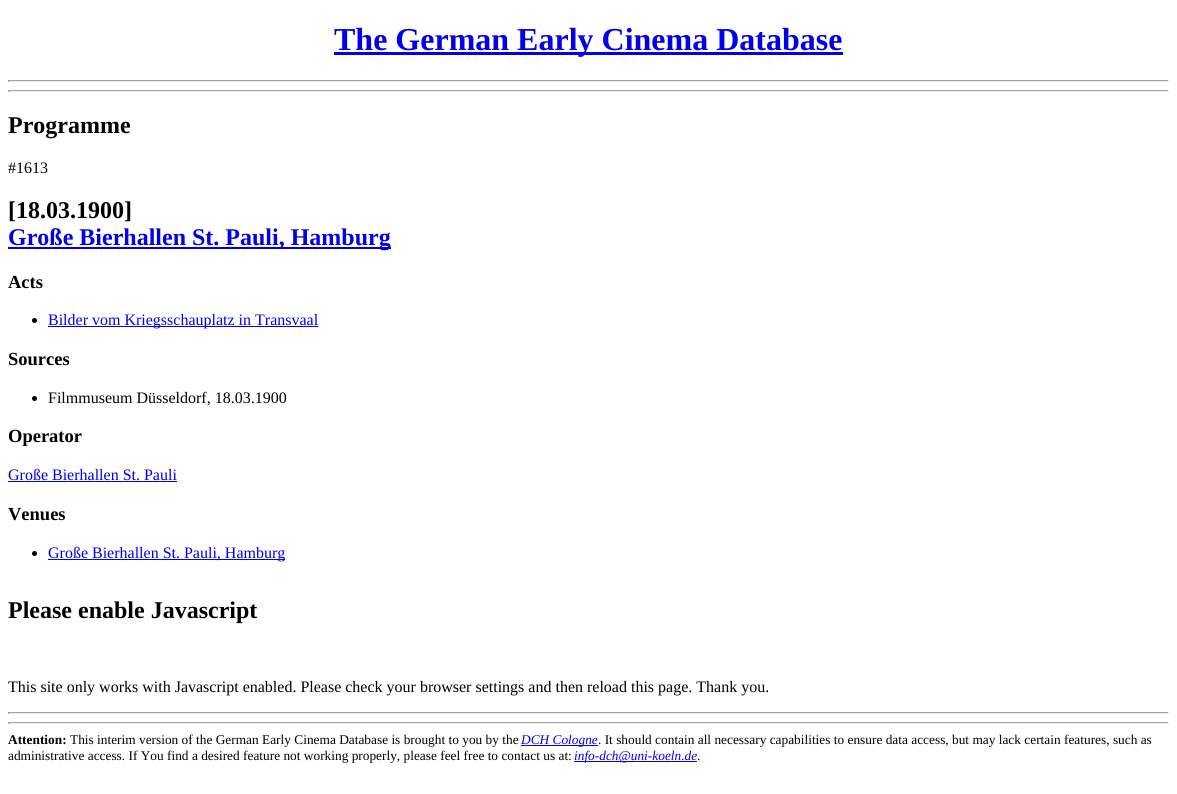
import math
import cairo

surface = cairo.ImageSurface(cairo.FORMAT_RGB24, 1177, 794)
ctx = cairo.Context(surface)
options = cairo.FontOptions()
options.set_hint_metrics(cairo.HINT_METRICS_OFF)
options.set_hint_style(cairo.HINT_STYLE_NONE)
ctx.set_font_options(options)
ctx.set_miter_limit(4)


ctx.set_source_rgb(1, 1, 1)
ctx.paint()
ctx.set_source_rgb(0, 0, 0.933)
ctx.rectangle(334, 52, 509, 3)
ctx.fill()
ctx.select_font_face("Liberation Serif", cairo.FONT_SLANT_NORMAL, cairo.FONT_WEIGHT_BOLD)
ctx.set_font_size(32)
ctx.move_to(334, 50)
ctx.show_text("The German Early Cinema Database")
ctx.set_source_rgb(0.624, 0.624, 0.624)
ctx.rectangle(8, 80, 1161, 1)
ctx.fill()
ctx.set_source_rgb(0.933, 0.933, 0.933)
ctx.rectangle(1168, 80, 1, 2)
ctx.fill()
ctx.rectangle(8, 81, 1161, 1)
ctx.fill()
ctx.set_source_rgb(0.624, 0.624, 0.624)
ctx.rectangle(8, 80, 1, 2)
ctx.fill()
ctx.rectangle(8, 90, 1161, 1)
ctx.fill()
ctx.set_source_rgb(0.933, 0.933, 0.933)
ctx.rectangle(1168, 90, 1, 2)
ctx.fill()
ctx.rectangle(8, 91, 1161, 1)
ctx.fill()
ctx.set_source_rgb(0.624, 0.624, 0.624)
ctx.rectangle(8, 90, 1, 2)
ctx.fill()
ctx.set_font_size(24)
ctx.set_source_rgb(0, 0, 0)
ctx.move_to(8, 133)
ctx.show_text("Programme")
ctx.select_font_face("Liberation Serif")
ctx.set_font_size(16)
ctx.move_to(8, 173)
ctx.show_text("#1613")
ctx.select_font_face("Liberation Serif", cairo.FONT_SLANT_NORMAL, cairo.FONT_WEIGHT_BOLD)
ctx.set_font_size(24)
ctx.move_to(8, 218)
ctx.show_text("[18.03.1900]")
ctx.set_source_rgb(0, 0, 0.933)
ctx.rectangle(8, 247, 383, 2)
ctx.fill()
ctx.move_to(8, 245)
ctx.show_text("Große Bierhallen St. Pauli, Hamburg")
ctx.set_font_size(18.5)
ctx.set_source_rgb(0, 0, 0)
ctx.move_to(8, 288)
ctx.show_text("Acts")
ctx.new_path()
ctx.arc(34.5, 320.5, 2.5, 0, 2 * math.pi)
ctx.fill()
ctx.set_source_rgb(0, 0, 0.933)
ctx.rectangle(48, 326, 270, 1)
ctx.fill()
ctx.select_font_face("Liberation Serif")
ctx.set_font_size(16)
ctx.move_to(48, 325)
ctx.show_text("Bilder vom Kriegsschauplatz in Transvaal")
ctx.select_font_face("Liberation Serif", cairo.FONT_SLANT_NORMAL, cairo.FONT_WEIGHT_BOLD)
ctx.set_font_size(18.5)
ctx.set_source_rgb(0, 0, 0)
ctx.move_to(8, 365)
ctx.show_text("Sources")
ctx.new_path()
ctx.arc(34.5, 398.5, 2.5, 0, 2 * math.pi)
ctx.fill()
ctx.select_font_face("Liberation Serif")
ctx.set_font_size(16)
ctx.move_to(48, 403)
ctx.show_text("Filmmuseum Düsseldorf, 18.03.1900")
ctx.select_font_face("Liberation Serif", cairo.FONT_SLANT_NORMAL, cairo.FONT_WEIGHT_BOLD)
ctx.set_font_size(18.5)
ctx.move_to(8, 442)
ctx.show_text("Operator")
ctx.select_font_face("Liberation Serif")
ctx.set_font_size(16)
ctx.set_source_rgb(0, 0, 0.933)
ctx.move_to(8, 480)
ctx.show_text("Große Bierhallen St. Pauli")
ctx.rectangle(8, 481, 169, 1)
ctx.fill()
ctx.select_font_face("Liberation Serif", cairo.FONT_SLANT_NORMAL, cairo.FONT_WEIGHT_BOLD)
ctx.set_font_size(18.5)
ctx.set_source_rgb(0, 0, 0)
ctx.move_to(8, 520)
ctx.show_text("Venues")
ctx.new_path()
ctx.arc(34.5, 553.5, 2.5, 0, 2 * math.pi)
ctx.fill()
ctx.set_source_rgb(0, 0, 0.933)
ctx.rectangle(48, 559, 237, 1)
ctx.fill()
ctx.select_font_face("Liberation Serif")
ctx.set_font_size(16)
ctx.move_to(48, 558)
ctx.show_text("Große Bierhallen St. Pauli, Hamburg")
ctx.select_font_face("Liberation Serif", cairo.FONT_SLANT_NORMAL, cairo.FONT_WEIGHT_BOLD)
ctx.set_font_size(24)
ctx.set_source_rgb(0, 0, 0)
ctx.move_to(8, 618)
ctx.show_text("Please enable Javascript")
ctx.select_font_face("Liberation Serif")
ctx.set_font_size(16)
ctx.move_to(8, 692)
ctx.show_text("This site only works with Javascript enabled. Please check your browser settings and then reload this page. Thank you.")
ctx.set_source_rgb(0.624, 0.624, 0.624)
ctx.rectangle(8, 712, 1161, 1)
ctx.fill()
ctx.set_source_rgb(0.933, 0.933, 0.933)
ctx.rectangle(1168, 712, 1, 2)
ctx.fill()
ctx.rectangle(8, 713, 1161, 1)
ctx.fill()
ctx.set_source_rgb(0.624, 0.624, 0.624)
ctx.rectangle(8, 712, 1, 2)
ctx.fill()
ctx.rectangle(8, 722, 1161, 1)
ctx.fill()
ctx.set_source_rgb(0.933, 0.933, 0.933)
ctx.rectangle(1168, 722, 1, 2)
ctx.fill()
ctx.rectangle(8, 723, 1161, 1)
ctx.fill()
ctx.set_source_rgb(0.624, 0.624, 0.624)
ctx.rectangle(8, 722, 1, 2)
ctx.fill()
ctx.select_font_face("Liberation Serif", cairo.FONT_SLANT_NORMAL, cairo.FONT_WEIGHT_BOLD)
ctx.set_font_size(13.35)
ctx.set_source_rgb(0, 0, 0)
ctx.move_to(8, 744)
ctx.show_text("Attention:")
ctx.select_font_face("Liberation Serif")
ctx.move_to(70, 744)
ctx.show_text("This interim version of the German Early Cinema Database is brought to you by the")
ctx.set_source_rgb(0, 0, 0.933)
ctx.rectangle(521, 745, 77, 1)
ctx.fill()
ctx.select_font_face("Liberation Serif", cairo.FONT_SLANT_ITALIC)
ctx.move_to(521, 744)
ctx.show_text("DCH Cologne")
ctx.select_font_face("Liberation Serif")
ctx.set_source_rgb(0, 0, 0)
ctx.move_to(598, 744)
ctx.show_text(". It should contain all necessary capabilities to ensure data access, but may lack certain features, such as")
ctx.move_to(8, 760)
ctx.show_text("administrative access. If You find a desired feature not working properly, please feel free to contact us at:")
ctx.set_source_rgb(0, 0, 0.933)
ctx.rectangle(574, 761, 123, 1)
ctx.fill()
ctx.select_font_face("Liberation Serif", cairo.FONT_SLANT_ITALIC)
ctx.move_to(574, 760)
ctx.show_text("info-dch@uni-koeln.de")
ctx.select_font_face("Liberation Serif")
ctx.set_source_rgb(0, 0, 0)
ctx.move_to(697, 760)
ctx.show_text(".")
surface.write_to_png("page.png")
